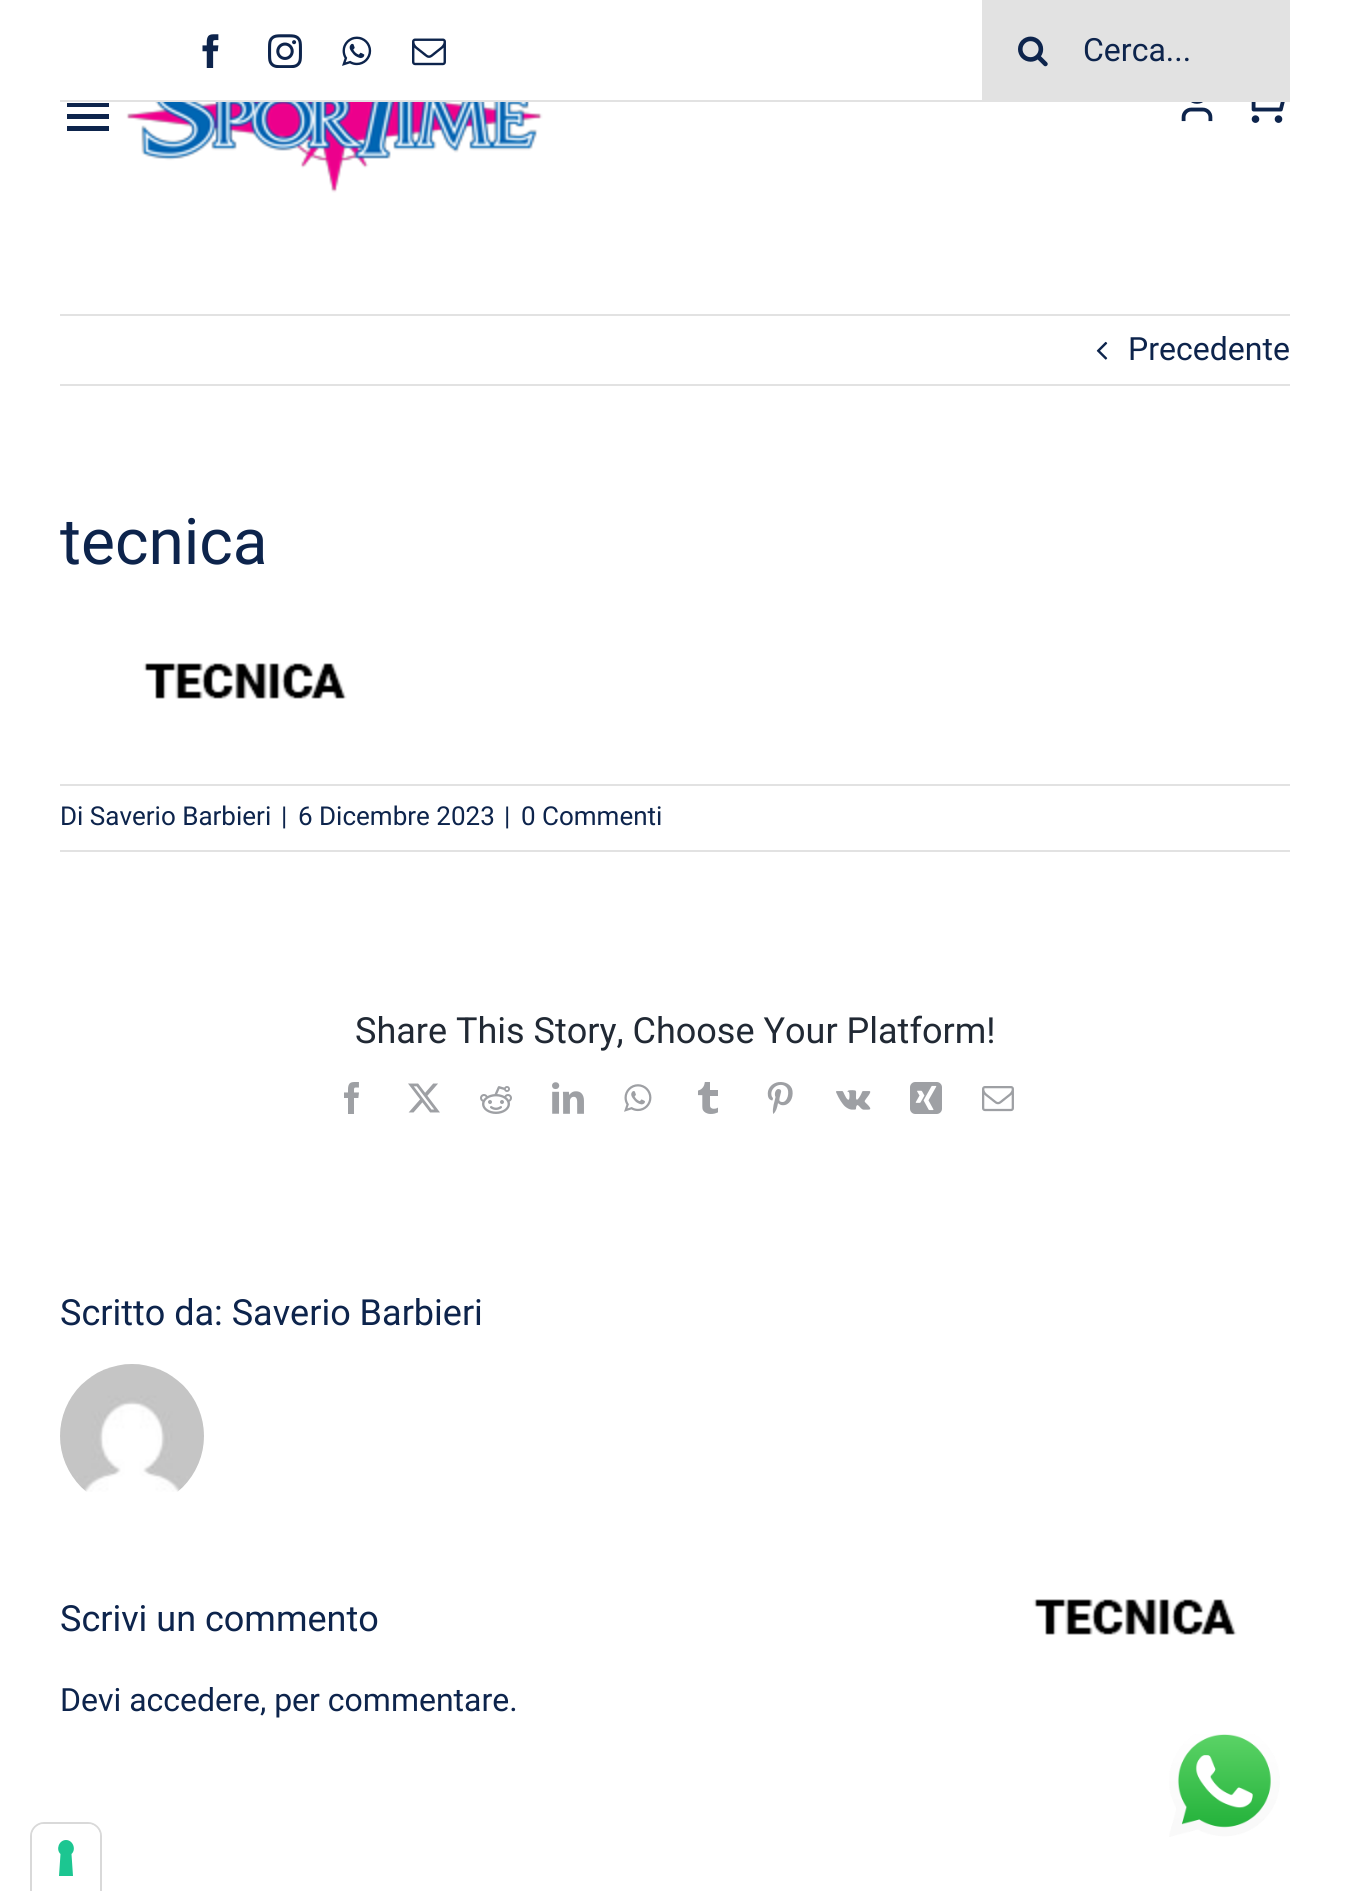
import math
import cairo

surface = cairo.ImageSurface(cairo.FORMAT_RGB24, 1350, 1891)
ctx = cairo.Context(surface)
options = cairo.FontOptions()
options.set_hint_metrics(cairo.HINT_METRICS_OFF)
options.set_hint_style(cairo.HINT_STYLE_NONE)
ctx.set_font_options(options)
ctx.set_miter_limit(4)


def picture(path, x, y, w, h):
    ctx.save()
    ctx.set_source_surface(cairo.ImageSurface.create_from_png(path), x, y)
    ctx.rectangle(x, y, w, h)
    ctx.fill()
    ctx.restore()


ctx.set_source_rgb(1, 1, 1)
ctx.paint()
picture("img1.png", 202, 34, 17, 34)
picture("img2.png", 268, 34, 34, 34)
picture("img3.png", 342, 36, 30, 30)
picture("img4.png", 412, 38, 34, 28)
ctx.set_source_rgb(0.886, 0.886, 0.886)
ctx.rectangle(982, 0, 308, 100)
ctx.fill()
picture("img5.png", 1018, 36, 30, 31)
ctx.select_font_face("Roboto")
ctx.set_font_size(32)
ctx.set_source_rgb(0.051, 0.141, 0.298)
ctx.move_to(1083, 61)
ctx.show_text("Cerca...")
ctx.set_source_rgb(0.886, 0.886, 0.886)
ctx.rectangle(60, 100, 1230, 2)
ctx.fill()
ctx.set_source_rgb(0.051, 0.141, 0.298)
ctx.new_path()
ctx.move_to(67, 103)
ctx.line_to(109, 103)
ctx.line_to(109, 107)
ctx.line_to(67, 107)
ctx.close_path()
ctx.move_to(67, 119)
ctx.line_to(67, 114)
ctx.line_to(109, 114)
ctx.line_to(109, 119)
ctx.close_path()
ctx.move_to(67, 131)
ctx.line_to(67, 126)
ctx.line_to(109, 126)
ctx.line_to(109, 131)
ctx.close_path()
ctx.fill()
picture("img6.png", 126, 102, 417, 91)
picture("img7.png", 1181, 102, 32, 20)
picture("img8.png", 1251, 102, 34, 21)
ctx.set_source_rgb(0.886, 0.886, 0.886)
ctx.rectangle(60, 314, 1230, 2)
ctx.fill()
ctx.rectangle(60, 384, 1230, 2)
ctx.fill()
picture("img9.png", 1096, 341, 12, 19)
ctx.set_source_rgb(0.051, 0.141, 0.298)
ctx.move_to(1128, 360)
ctx.show_text("Precedente")
ctx.set_font_size(64)
ctx.move_to(60, 564)
ctx.show_text("tecnica")
picture("img10.png", 143, 663, 204, 36)
ctx.set_source_rgb(0.886, 0.886, 0.886)
ctx.rectangle(60, 784, 1230, 2)
ctx.fill()
ctx.rectangle(60, 850, 1230, 2)
ctx.fill()
ctx.set_font_size(26)
ctx.set_source_rgb(0.051, 0.141, 0.298)
ctx.move_to(60, 825)
ctx.show_text("Di Saverio Barbieri")
ctx.move_to(281, 825)
ctx.show_text("|")
ctx.move_to(298, 825)
ctx.show_text("6 Dicembre 2023")
ctx.move_to(504, 825)
ctx.show_text("|")
ctx.move_to(521, 825)
ctx.show_text("0 Commenti")
ctx.set_font_size(36)
ctx.set_source_rgb(0.129, 0.161, 0.204)
ctx.move_to(355, 1043)
ctx.show_text("Share This Story, Choose Your Platform!")
picture("img11.png", 344, 1082, 15, 32)
picture("img12.png", 408, 1083, 32, 30)
picture("img13.png", 480, 1086, 32, 28)
picture("img14.png", 552, 1082, 32, 32)
picture("img15.png", 624, 1084, 28, 28)
picture("img16.png", 698, 1082, 20, 32)
picture("img17.png", 767, 1082, 26, 32)
picture("img18.png", 836, 1090, 35, 20)
picture("img19.png", 910, 1082, 32, 32)
picture("img20.png", 982, 1086, 32, 26)
ctx.set_source_rgb(0.051, 0.141, 0.298)
ctx.move_to(60, 1325)
ctx.show_text("Scritto da: Saverio Barbieri")
picture("img21.png", 60, 1364, 144, 128)
ctx.move_to(60, 1631)
ctx.show_text("Scrivi un commento")
ctx.set_font_size(32)
ctx.move_to(60, 1711)
ctx.show_text("Devi accedere, per commentare.")
picture("img10.png", 1033, 1599, 204, 36)
picture("img22.png", 1169, 1734, 111, 103)
ctx.new_path()
ctx.move_to(44, 1823)
ctx.line_to(88, 1823)
ctx.curve_to(95, 1823, 101, 1829, 101, 1836)
ctx.line_to(101, 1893)
ctx.line_to(31, 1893)
ctx.line_to(31, 1836)
ctx.curve_to(31, 1829, 37, 1823, 44, 1823)
ctx.close_path()
ctx.set_source_rgb(0.851, 0.851, 0.851)
ctx.stroke()
ctx.set_source_rgb(1, 1, 1)
ctx.new_path()
ctx.move_to(44, 1824)
ctx.line_to(88, 1824)
ctx.curve_to(94.5, 1824, 100, 1829.5, 100, 1836)
ctx.line_to(100, 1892)
ctx.line_to(32, 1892)
ctx.line_to(32, 1836)
ctx.curve_to(32, 1829.5, 37.5, 1824, 44, 1824)
ctx.close_path()
ctx.fill()
ctx.set_source_rgb(0.11, 0.776, 0.569)
ctx.set_fill_rule(cairo.FILL_RULE_EVEN_ODD)
ctx.new_path()
ctx.move_to(66, 1840)
ctx.curve_to(73, 1840, 76.5, 1849.5, 71.5, 1854)
ctx.line_to(73, 1876)
ctx.line_to(59, 1876)
ctx.line_to(60.5, 1854)
ctx.curve_to(55.5, 1849.5, 59, 1840, 66, 1840)
ctx.close_path()
ctx.fill()
surface.write_to_png("page.png")
